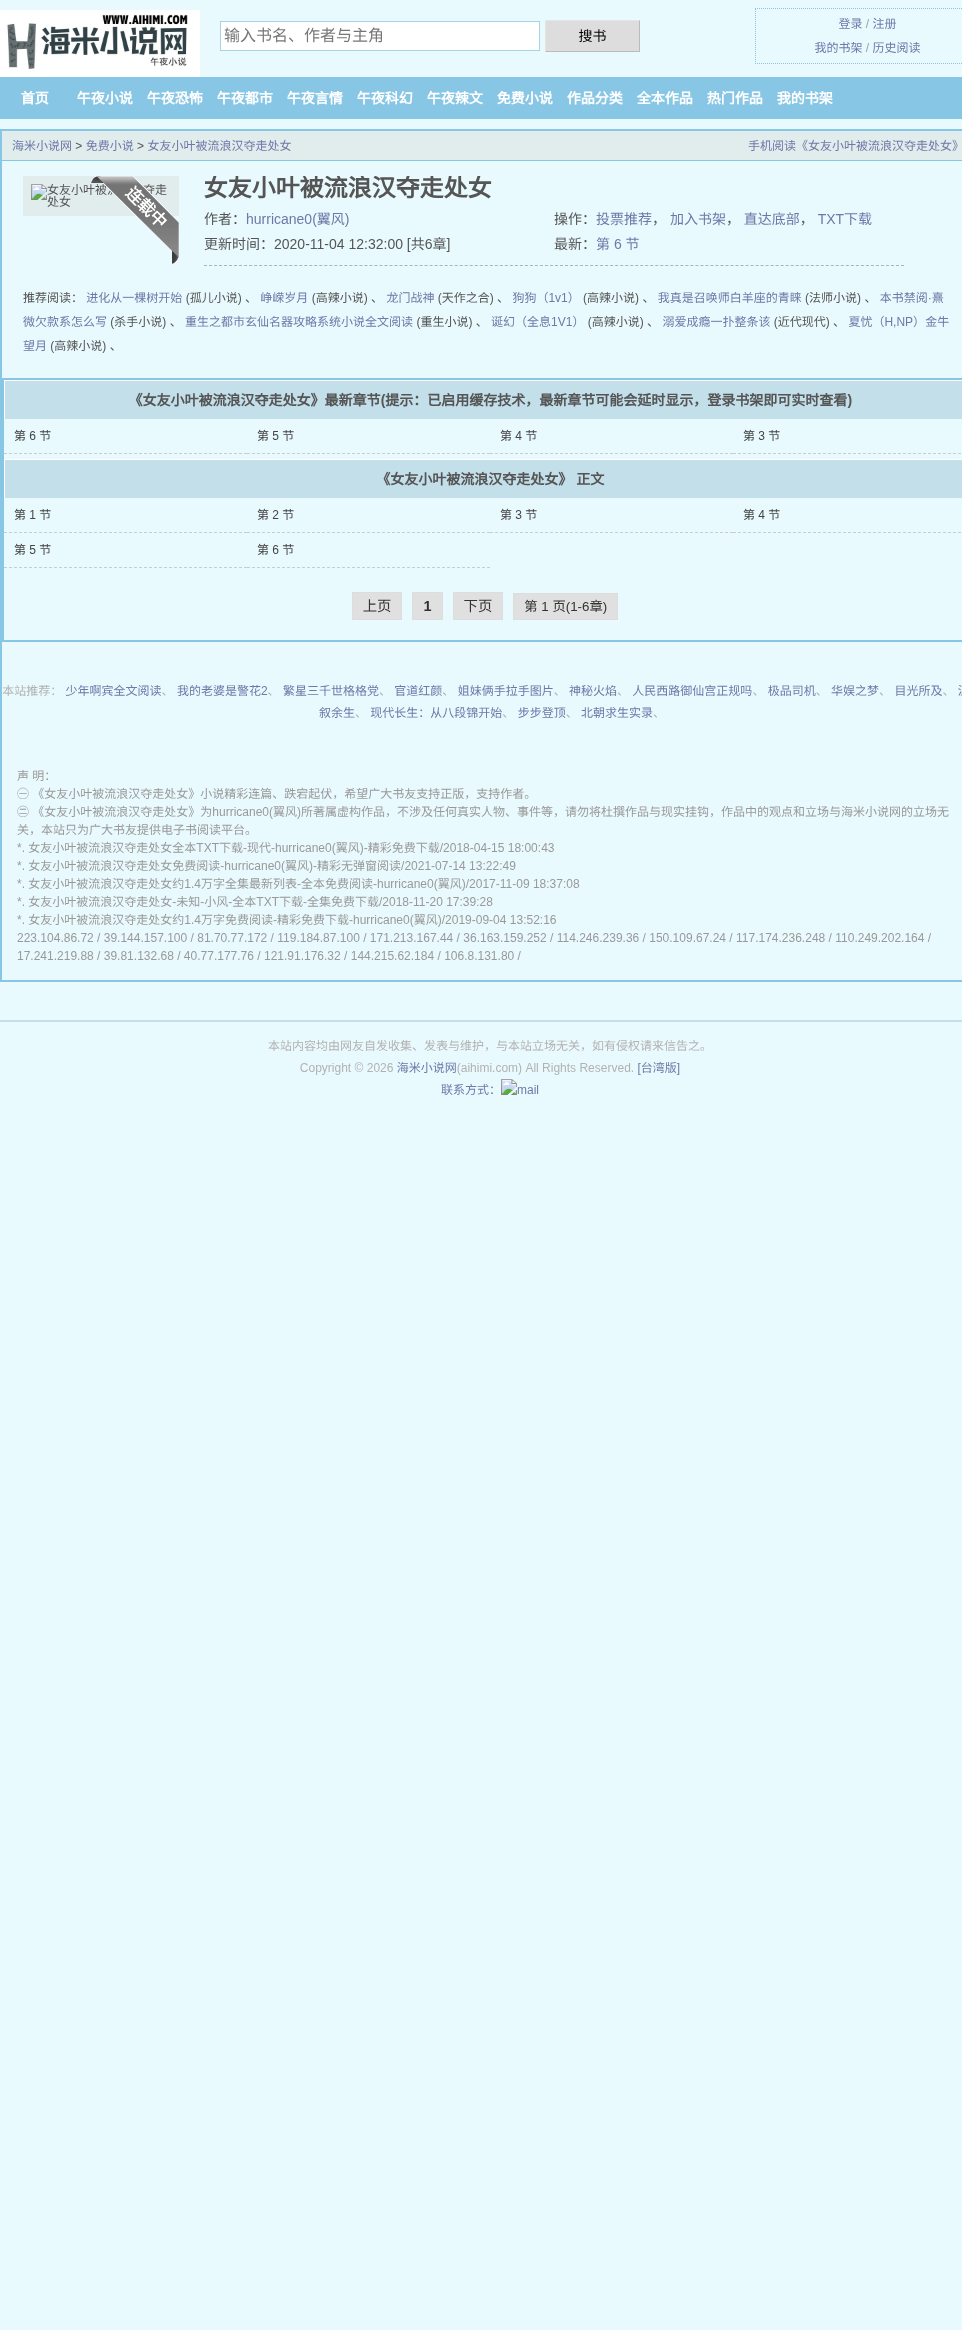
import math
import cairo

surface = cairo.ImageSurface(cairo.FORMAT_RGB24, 962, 2330)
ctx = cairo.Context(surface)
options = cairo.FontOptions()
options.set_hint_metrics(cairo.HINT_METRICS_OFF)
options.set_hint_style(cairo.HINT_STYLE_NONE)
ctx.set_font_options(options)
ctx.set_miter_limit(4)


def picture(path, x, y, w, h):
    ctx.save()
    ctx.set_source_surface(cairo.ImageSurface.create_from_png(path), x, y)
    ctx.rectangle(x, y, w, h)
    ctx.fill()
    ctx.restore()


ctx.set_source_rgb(1, 1, 1)
ctx.paint()
picture("img1.png", 0, 0, 962, 2330)
surface.write_to_png("page.png")
